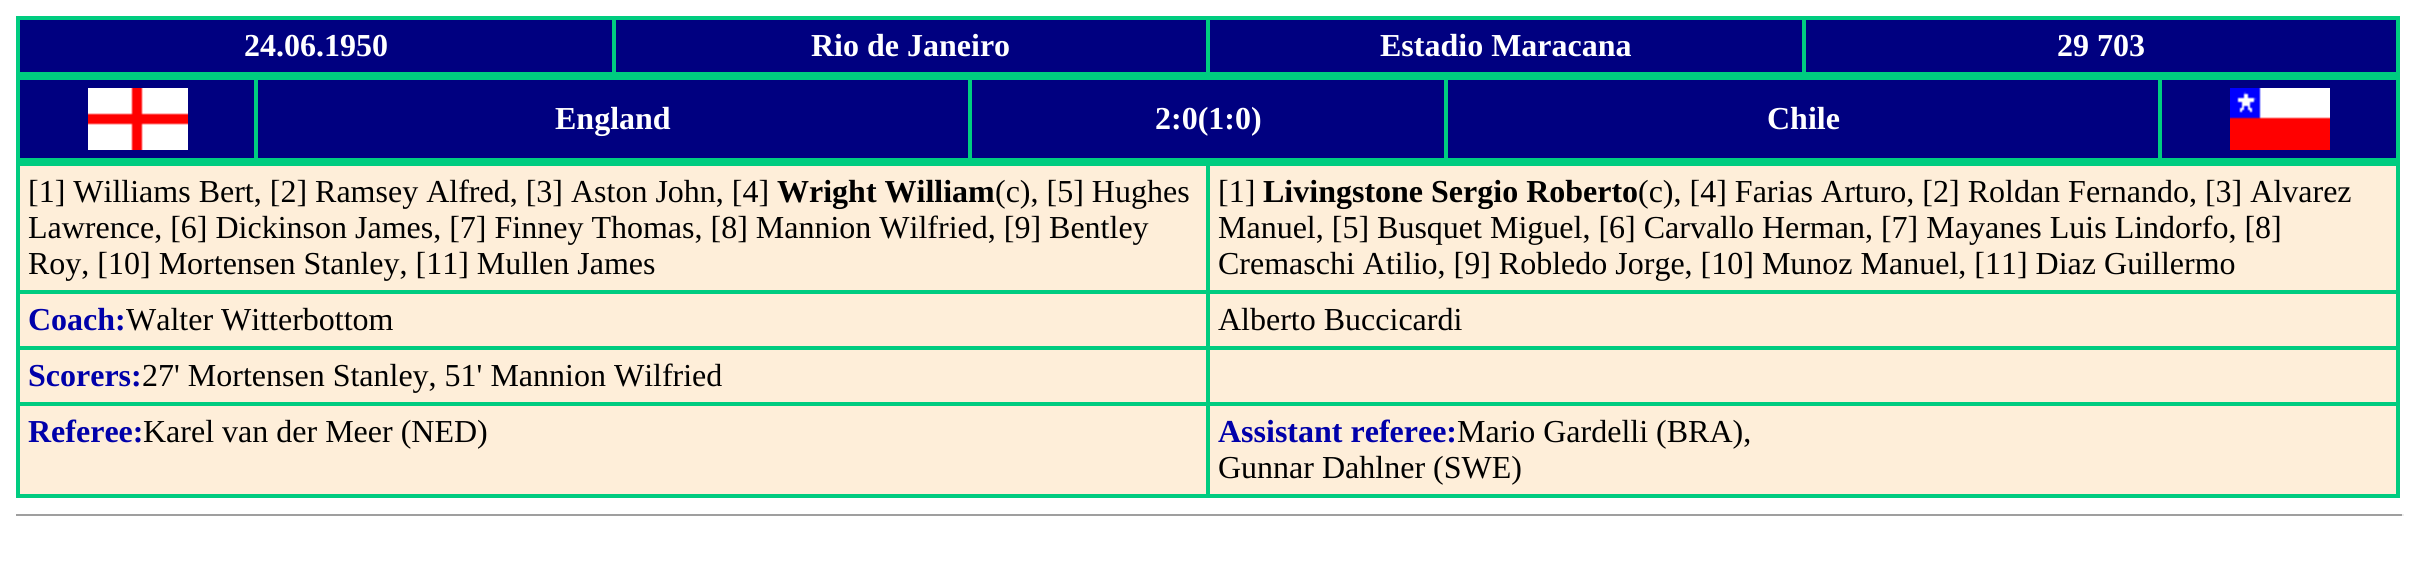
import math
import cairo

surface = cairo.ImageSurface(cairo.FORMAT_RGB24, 2416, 577)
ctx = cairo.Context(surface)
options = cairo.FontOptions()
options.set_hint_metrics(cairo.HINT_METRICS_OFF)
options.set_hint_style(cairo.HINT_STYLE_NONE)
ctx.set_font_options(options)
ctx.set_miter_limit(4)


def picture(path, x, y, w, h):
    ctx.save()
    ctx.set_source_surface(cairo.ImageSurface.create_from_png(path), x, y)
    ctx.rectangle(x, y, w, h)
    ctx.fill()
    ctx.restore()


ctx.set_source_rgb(1, 1, 1)
ctx.paint()
ctx.set_source_rgb(0, 0, 0.502)
ctx.rectangle(20, 20, 2376, 52)
ctx.fill()
ctx.rectangle(17, 17, 2382, 58)
ctx.set_source_rgb(0, 0.8, 0.502)
ctx.stroke()
ctx.rectangle(19, 19, 594, 54)
ctx.stroke()
ctx.select_font_face("Liberation Serif", cairo.FONT_SLANT_NORMAL, cairo.FONT_WEIGHT_BOLD)
ctx.set_font_size(32)
ctx.set_source_rgb(1, 1, 1)
ctx.move_to(244, 56)
ctx.show_text("24.06.1950")
ctx.rectangle(615, 19, 592, 54)
ctx.set_source_rgb(0, 0.8, 0.502)
ctx.stroke()
ctx.set_source_rgb(1, 1, 1)
ctx.move_to(811, 56)
ctx.show_text("Rio de Janeiro")
ctx.rectangle(1209, 19, 594, 54)
ctx.set_source_rgb(0, 0.8, 0.502)
ctx.stroke()
ctx.set_source_rgb(1, 1, 1)
ctx.move_to(1380, 56)
ctx.show_text("Estadio Maracana")
ctx.rectangle(1805, 19, 592, 54)
ctx.set_source_rgb(0, 0.8, 0.502)
ctx.stroke()
ctx.set_source_rgb(1, 1, 1)
ctx.move_to(2057, 56)
ctx.show_text("29 703")
ctx.set_source_rgb(0, 0, 0.502)
ctx.rectangle(20, 80, 2376, 78)
ctx.fill()
ctx.rectangle(17, 77, 2382, 84)
ctx.set_source_rgb(0, 0.8, 0.502)
ctx.stroke()
ctx.rectangle(19, 79, 236, 80)
ctx.stroke()
picture("img1.png", 88, 88, 100, 62)
ctx.rectangle(257, 79, 712, 80)
ctx.stroke()
ctx.set_source_rgb(1, 1, 1)
ctx.move_to(555, 129)
ctx.show_text("England")
ctx.rectangle(971, 79, 474, 80)
ctx.set_source_rgb(0, 0.8, 0.502)
ctx.stroke()
ctx.set_source_rgb(1, 1, 1)
ctx.move_to(1155, 129)
ctx.show_text("2:0(1:0)")
ctx.rectangle(1447, 79, 712, 80)
ctx.set_source_rgb(0, 0.8, 0.502)
ctx.stroke()
ctx.set_source_rgb(1, 1, 1)
ctx.move_to(1767, 129)
ctx.show_text("Chile")
ctx.rectangle(2161, 79, 236, 80)
ctx.set_source_rgb(0, 0.8, 0.502)
ctx.stroke()
picture("img2.png", 2230, 88, 100, 62)
ctx.set_source_rgb(0.996, 0.933, 0.851)
ctx.rectangle(20, 166, 2376, 328)
ctx.fill()
ctx.rectangle(17, 163, 2382, 334)
ctx.set_source_rgb(0, 0.8, 0.502)
ctx.stroke()
ctx.rectangle(19, 165, 1188, 126)
ctx.stroke()
ctx.select_font_face("Liberation Serif")
ctx.set_source_rgb(0, 0, 0)
ctx.move_to(28, 202)
ctx.show_text("[1] Williams Bert, [2] Ramsey Alfred, [3] Aston John, [4]")
ctx.select_font_face("Liberation Serif", cairo.FONT_SLANT_NORMAL, cairo.FONT_WEIGHT_BOLD)
ctx.move_to(777, 202)
ctx.show_text("Wright William")
ctx.select_font_face("Liberation Serif")
ctx.move_to(995, 202)
ctx.show_text("(c), [5] Hughes")
ctx.move_to(28, 238)
ctx.show_text("Lawrence, [6] Dickinson James, [7] Finney Thomas, [8] Mannion Wilfried, [9] Bentley")
ctx.move_to(28, 274)
ctx.show_text("Roy, [10] Mortensen Stanley, [11] Mullen James")
ctx.rectangle(1209, 165, 1188, 126)
ctx.set_source_rgb(0, 0.8, 0.502)
ctx.stroke()
ctx.set_source_rgb(0, 0, 0)
ctx.move_to(1218, 202)
ctx.show_text("[1]")
ctx.select_font_face("Liberation Serif", cairo.FONT_SLANT_NORMAL, cairo.FONT_WEIGHT_BOLD)
ctx.move_to(1263, 202)
ctx.show_text("Livingstone Sergio Roberto")
ctx.select_font_face("Liberation Serif")
ctx.move_to(1638, 202)
ctx.show_text("(c), [4] Farias Arturo, [2] Roldan Fernando, [3] Alvarez")
ctx.move_to(1218, 238)
ctx.show_text("Manuel, [5] Busquet Miguel, [6] Carvallo Herman, [7] Mayanes Luis Lindorfo, [8]")
ctx.move_to(1218, 274)
ctx.show_text("Cremaschi Atilio, [9] Robledo Jorge, [10] Munoz Manuel, [11] Diaz Guillermo")
ctx.rectangle(19, 293, 1188, 54)
ctx.set_source_rgb(0, 0.8, 0.502)
ctx.stroke()
ctx.select_font_face("Liberation Serif", cairo.FONT_SLANT_NORMAL, cairo.FONT_WEIGHT_BOLD)
ctx.set_source_rgb(0, 0, 0.667)
ctx.move_to(28, 330)
ctx.show_text("Coach:")
ctx.select_font_face("Liberation Serif")
ctx.set_source_rgb(0, 0, 0)
ctx.move_to(126, 330)
ctx.show_text("Walter Witterbottom")
ctx.rectangle(1209, 293, 1188, 54)
ctx.set_source_rgb(0, 0.8, 0.502)
ctx.stroke()
ctx.set_source_rgb(0, 0, 0)
ctx.move_to(1218, 330)
ctx.show_text("Alberto Buccicardi")
ctx.rectangle(19, 349, 1188, 54)
ctx.set_source_rgb(0, 0.8, 0.502)
ctx.stroke()
ctx.select_font_face("Liberation Serif", cairo.FONT_SLANT_NORMAL, cairo.FONT_WEIGHT_BOLD)
ctx.set_source_rgb(0, 0, 0.667)
ctx.move_to(28, 386)
ctx.show_text("Scorers:")
ctx.select_font_face("Liberation Serif")
ctx.set_source_rgb(0, 0, 0)
ctx.move_to(142, 386)
ctx.show_text("27' Mortensen Stanley, 51' Mannion Wilfried")
ctx.rectangle(1209, 349, 1188, 54)
ctx.set_source_rgb(0, 0.8, 0.502)
ctx.stroke()
ctx.rectangle(19, 405, 1188, 90)
ctx.stroke()
ctx.select_font_face("Liberation Serif", cairo.FONT_SLANT_NORMAL, cairo.FONT_WEIGHT_BOLD)
ctx.set_source_rgb(0, 0, 0.667)
ctx.move_to(28, 442)
ctx.show_text("Referee:")
ctx.select_font_face("Liberation Serif")
ctx.set_source_rgb(0, 0, 0)
ctx.move_to(143, 442)
ctx.show_text("Karel van der Meer (NED)")
ctx.rectangle(1209, 405, 1188, 90)
ctx.set_source_rgb(0, 0.8, 0.502)
ctx.stroke()
ctx.select_font_face("Liberation Serif", cairo.FONT_SLANT_NORMAL, cairo.FONT_WEIGHT_BOLD)
ctx.set_source_rgb(0, 0, 0.667)
ctx.move_to(1218, 442)
ctx.show_text("Assistant referee:")
ctx.select_font_face("Liberation Serif")
ctx.set_source_rgb(0, 0, 0)
ctx.move_to(1457, 442)
ctx.show_text("Mario Gardelli (BRA),")
ctx.move_to(1218, 478)
ctx.show_text("Gunnar Dahlner (SWE)")
ctx.set_source_rgb(0.624, 0.624, 0.624)
ctx.rectangle(16, 514, 2388, 2)
ctx.fill()
ctx.set_source_rgb(0.933, 0.933, 0.933)
ctx.rectangle(2402, 514, 2, 2)
ctx.fill()
surface.write_to_png("page.png")
